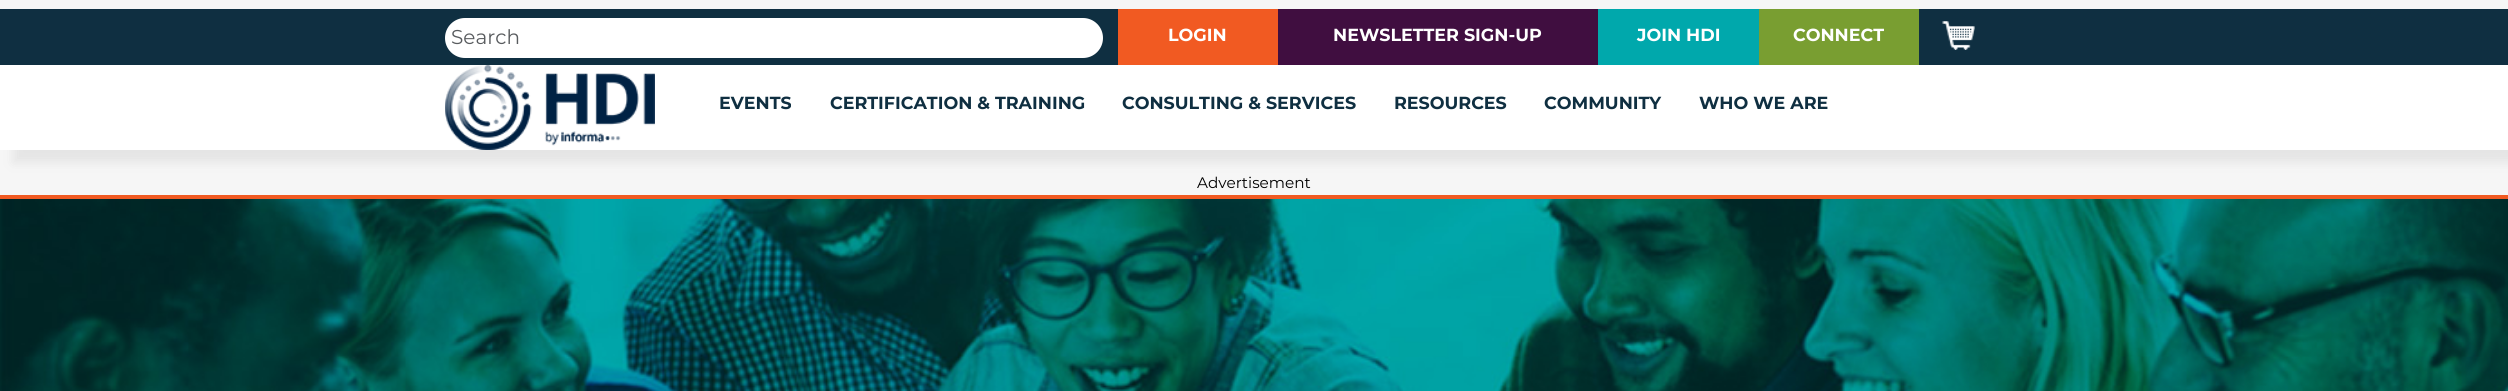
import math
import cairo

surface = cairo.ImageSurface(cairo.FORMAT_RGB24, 2508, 391)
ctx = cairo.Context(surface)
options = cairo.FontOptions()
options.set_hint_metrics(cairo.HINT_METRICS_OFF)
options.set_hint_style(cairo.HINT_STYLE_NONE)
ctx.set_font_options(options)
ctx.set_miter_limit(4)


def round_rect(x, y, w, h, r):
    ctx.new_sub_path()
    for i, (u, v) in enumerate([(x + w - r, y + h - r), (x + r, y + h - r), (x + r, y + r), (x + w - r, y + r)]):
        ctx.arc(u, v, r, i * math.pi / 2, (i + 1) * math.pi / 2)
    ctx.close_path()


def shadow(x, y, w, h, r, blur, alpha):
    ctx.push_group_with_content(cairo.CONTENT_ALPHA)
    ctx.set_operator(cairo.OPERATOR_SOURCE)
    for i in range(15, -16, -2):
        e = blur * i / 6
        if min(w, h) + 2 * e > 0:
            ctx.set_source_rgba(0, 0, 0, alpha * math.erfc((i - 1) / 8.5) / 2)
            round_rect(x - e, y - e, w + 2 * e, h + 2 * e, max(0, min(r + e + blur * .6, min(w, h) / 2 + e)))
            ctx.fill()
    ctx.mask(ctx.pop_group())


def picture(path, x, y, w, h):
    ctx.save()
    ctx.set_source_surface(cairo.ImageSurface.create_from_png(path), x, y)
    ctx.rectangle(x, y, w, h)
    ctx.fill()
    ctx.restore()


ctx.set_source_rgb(0.961, 0.961, 0.961)
ctx.paint()
ctx.set_source_rgb(0.059, 0.184, 0.255)
ctx.rectangle(0, 9, 2508, 56)
ctx.fill()
ctx.set_source_rgb(1, 1, 1)
round_rect(445, 18, 658, 40, 20)
ctx.fill()
ctx.select_font_face("Montserrat")
ctx.set_font_size(20)
ctx.set_source_rgb(0.349, 0.361, 0.373)
ctx.move_to(451, 44)
ctx.show_text("Search")
ctx.set_source_rgb(0.898, 0.898, 0.898)
shadow(13, 78, 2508, 85, 0, 5, 1)
ctx.set_source_rgb(0.945, 0.353, 0.133)
ctx.rectangle(1118, 9, 160, 56)
ctx.fill()
ctx.select_font_face("Montserrat", cairo.FONT_SLANT_NORMAL, cairo.FONT_WEIGHT_BOLD)
ctx.set_font_size(17.5)
ctx.set_source_rgb(1, 1, 1)
ctx.move_to(1168, 41)
ctx.show_text("LOGIN")
ctx.set_source_rgb(0.251, 0.055, 0.251)
ctx.rectangle(1278, 9, 320, 56)
ctx.fill()
ctx.set_source_rgb(1, 1, 1)
ctx.move_to(1333, 41)
ctx.show_text("NEWSLETTER SIGN-UP")
ctx.set_source_rgb(0, 0.659, 0.675)
ctx.rectangle(1598, 9, 161, 56)
ctx.fill()
ctx.set_source_rgb(1, 1, 1)
ctx.move_to(1637, 41)
ctx.show_text("JOIN HDI")
ctx.set_source_rgb(0.475, 0.62, 0.192)
ctx.rectangle(1759, 9, 160, 56)
ctx.fill()
ctx.set_source_rgb(1, 1, 1)
ctx.move_to(1793, 41)
ctx.show_text("CONNECT")
picture("img1.png", 1942, 21, 33, 29)
ctx.rectangle(0, 65, 2508, 85)
ctx.fill()
picture("img2.png", 445, 65, 210, 85)
ctx.set_source_rgb(0.059, 0.184, 0.255)
ctx.move_to(719, 109)
ctx.show_text("EVENTS")
ctx.move_to(830, 109)
ctx.show_text("CERTIFICATION & TRAINING")
ctx.move_to(1122, 109)
ctx.show_text("CONSULTING & SERVICES")
ctx.move_to(1394, 109)
ctx.show_text("RESOURCES")
ctx.move_to(1544, 109)
ctx.show_text("COMMUNITY")
ctx.move_to(1699, 109)
ctx.show_text("WHO WE ARE")
ctx.select_font_face("Montserrat")
ctx.set_font_size(15.25)
ctx.set_source_rgb(0, 0, 0)
ctx.move_to(1197, 188)
ctx.show_text("Advertisement")
picture("img3.png", 0, 199, 2508, 192)
ctx.set_source_rgb(0.945, 0.353, 0.133)
ctx.rectangle(0, 195, 2508, 4)
ctx.fill()
surface.write_to_png("page.png")
